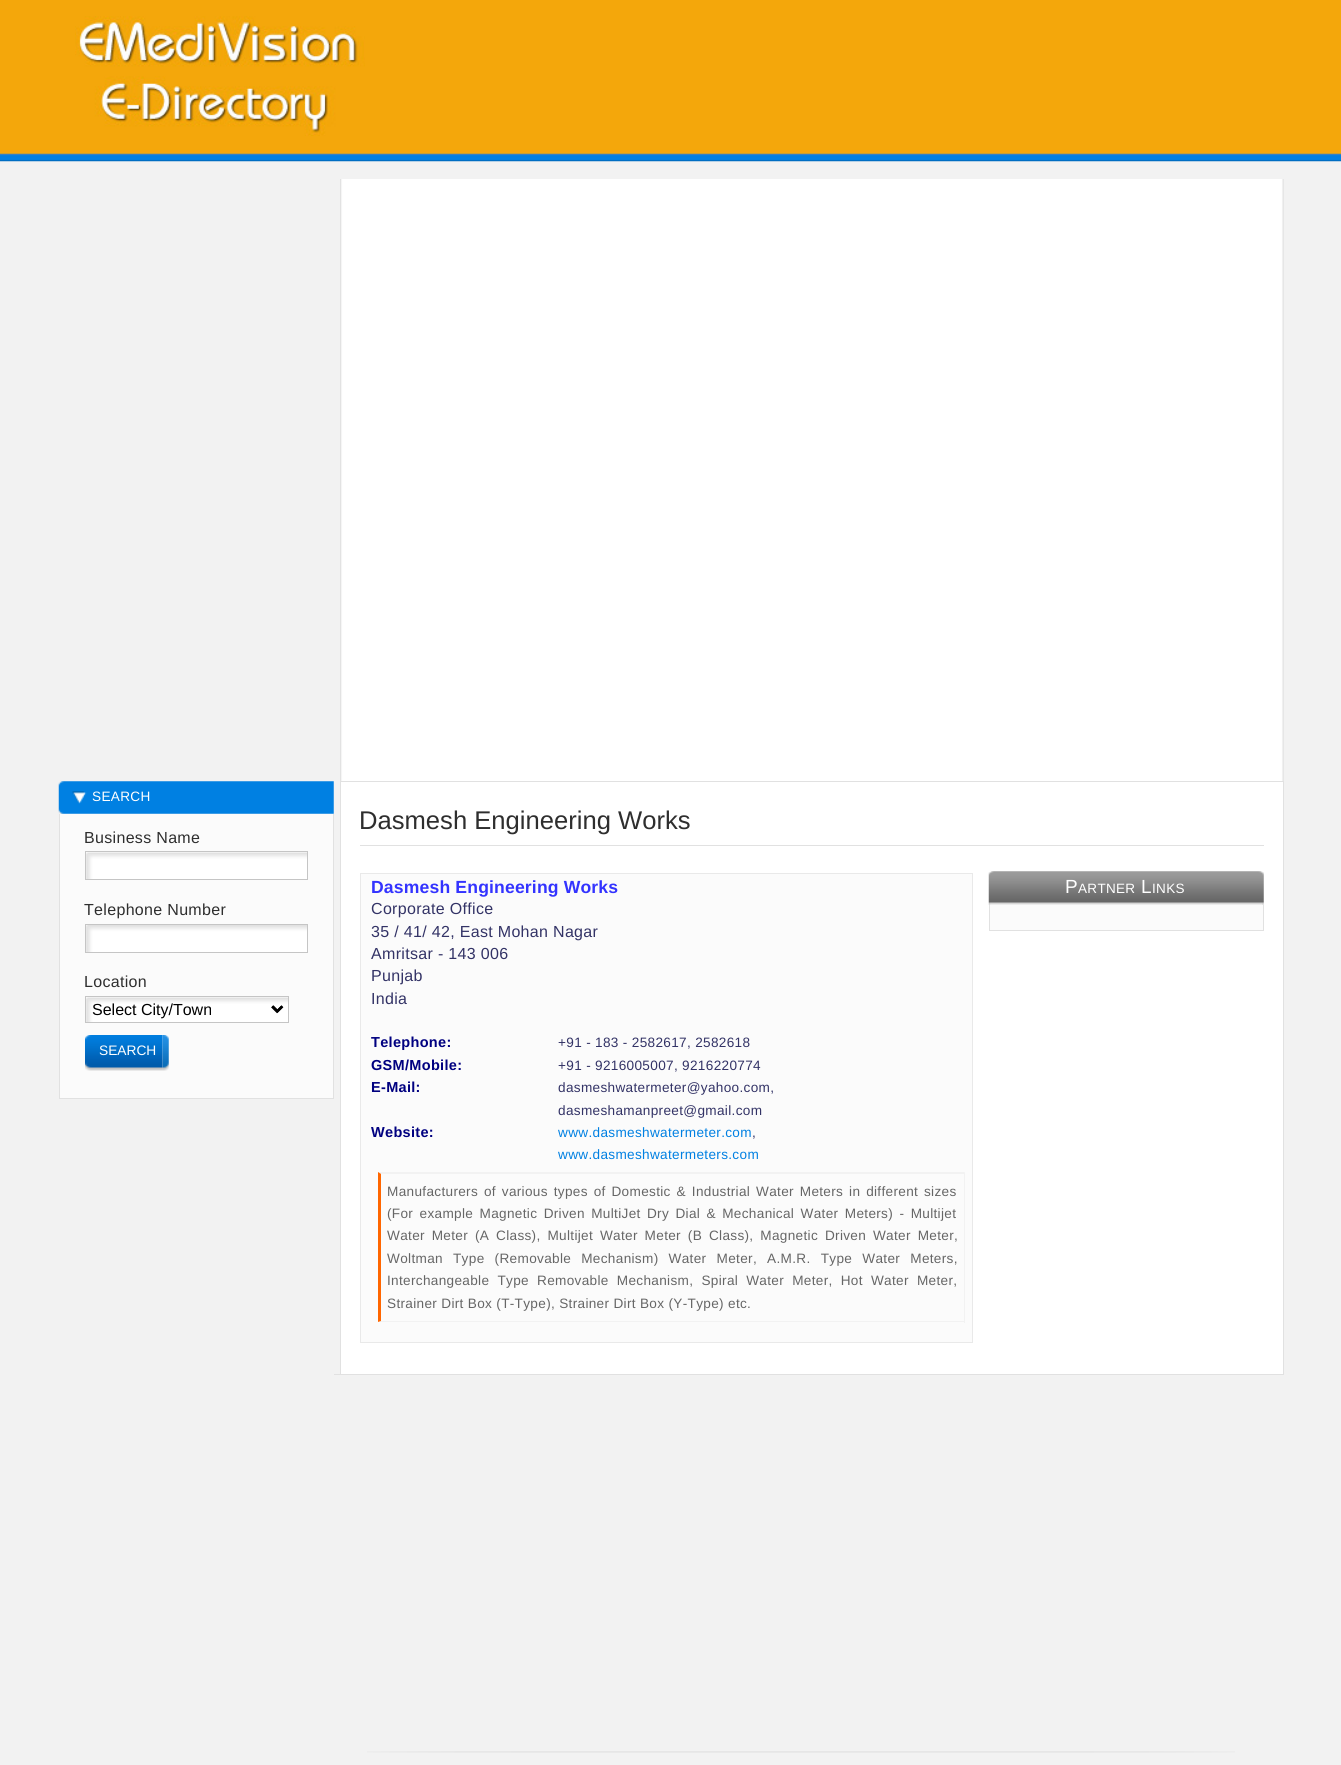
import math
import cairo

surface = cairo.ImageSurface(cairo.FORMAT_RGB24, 1341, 1765)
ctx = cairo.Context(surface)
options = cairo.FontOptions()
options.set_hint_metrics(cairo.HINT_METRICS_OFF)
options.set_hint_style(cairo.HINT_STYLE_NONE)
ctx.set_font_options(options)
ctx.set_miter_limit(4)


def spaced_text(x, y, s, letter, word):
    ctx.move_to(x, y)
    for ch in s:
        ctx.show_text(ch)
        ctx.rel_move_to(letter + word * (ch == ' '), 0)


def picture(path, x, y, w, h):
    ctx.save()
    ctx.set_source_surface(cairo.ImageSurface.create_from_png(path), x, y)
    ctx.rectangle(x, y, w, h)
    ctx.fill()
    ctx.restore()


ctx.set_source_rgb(0.949, 0.949, 0.949)
ctx.paint()
picture("img1.png", 0, 0, 1341, 162)
picture("img2.png", 75, 16, 290, 120)
picture("img3.png", 340, 179, 944, 602)
picture("img4.png", 58, 781, 276, 33)
ctx.select_font_face("Liberation Sans")
ctx.set_font_size(13.6)
ctx.set_source_rgb(1, 1, 1)
spaced_text(92, 801, "SEARCH", 0.32, 0)
ctx.set_source_rgb(0.984, 0.984, 0.984)
ctx.rectangle(60, 814, 273, 284)
ctx.fill()
ctx.set_source_rgb(0.882, 0.882, 0.882)
ctx.rectangle(333, 814, 1, 285)
ctx.fill()
ctx.rectangle(59, 1098, 275, 1)
ctx.fill()
ctx.rectangle(59, 814, 1, 285)
ctx.fill()
ctx.set_font_size(16)
ctx.set_source_rgb(0.18, 0.18, 0.18)
spaced_text(84, 843, "Business Name", 0.32, 0)
ctx.set_source_rgb(1, 1, 1)
ctx.rectangle(86, 852, 221, 27)
ctx.fill()
picture("img5.png", 86, 852, 221, 27)
ctx.rectangle(85.5, 851.5, 222, 28)
ctx.set_source_rgb(0.773, 0.773, 0.773)
ctx.set_line_width(1)
ctx.stroke()
ctx.set_source_rgb(0.18, 0.18, 0.18)
spaced_text(84, 915, "Telephone Number", 0.32, 0)
picture("img6.png", 86, 925, 221, 27)
ctx.rectangle(85.5, 924.5, 222, 28)
ctx.set_source_rgb(0.773, 0.773, 0.773)
ctx.stroke()
ctx.set_source_rgb(0.18, 0.18, 0.18)
spaced_text(84, 987, "Location", 0.32, 0)
ctx.set_source_rgb(1, 1, 1)
ctx.rectangle(86, 997, 202, 25)
ctx.fill()
picture("img7.png", 86, 997, 202, 25)
ctx.rectangle(85.5, 996.5, 203, 26)
ctx.set_source_rgb(0.773, 0.773, 0.773)
ctx.stroke()
ctx.new_path()
ctx.move_to(272, 1006.5)
ctx.line_to(277, 1011.5)
ctx.line_to(282, 1006.5)
ctx.set_source_rgb(0, 0, 0)
ctx.set_line_width(2.5)
ctx.stroke()
ctx.move_to(92, 1015)
ctx.show_text("Select City/Town")
picture("img8.png", 162, 1035, 7, 36)
picture("img9.png", 85, 1035, 78, 36)
ctx.set_font_size(13.75)
ctx.set_source_rgb(1, 1, 1)
ctx.move_to(99, 1055)
ctx.show_text("SEARCH")
ctx.rectangle(341, 782, 942, 592)
ctx.fill()
ctx.set_source_rgb(0.882, 0.882, 0.882)
ctx.rectangle(340, 781, 944, 1)
ctx.fill()
ctx.rectangle(1283, 781, 1, 593)
ctx.fill()
ctx.rectangle(340, 781, 1, 593)
ctx.fill()
ctx.rectangle(360, 845, 904, 1)
ctx.fill()
ctx.set_font_size(25.6)
ctx.set_source_rgb(0.18, 0.18, 0.18)
ctx.move_to(359, 829)
ctx.show_text("Dasmesh Engineering Works")
ctx.set_source_rgb(0.984, 0.984, 0.984)
ctx.rectangle(360.5, 873.5, 612, 469)
ctx.fill_preserve()
ctx.set_source_rgb(0.914, 0.914, 0.914)
ctx.set_line_width(1)
ctx.stroke()
ctx.select_font_face("Liberation Sans", cairo.FONT_SLANT_NORMAL, cairo.FONT_WEIGHT_BOLD)
ctx.set_font_size(17.6)
ctx.set_source_rgb(0.2, 0.2, 1)
spaced_text(371, 893, "Dasmesh Engineering Works", 0.15, 0)
ctx.select_font_face("Liberation Sans")
ctx.set_font_size(16)
ctx.set_source_rgb(0.2, 0.2, 0.4)
spaced_text(371, 914, "Corporate Office", 0.32, 0)
spaced_text(371, 937, "35 / 41/ 42, East Mohan Nagar", 0.32, 0)
spaced_text(371, 959, "Amritsar - 143 006", 0.32, 0)
spaced_text(371, 981, "Punjab", 0.32, 0)
spaced_text(371, 1004, "India", 0.32, 0)
ctx.select_font_face("Liberation Sans", cairo.FONT_SLANT_NORMAL, cairo.FONT_WEIGHT_BOLD)
ctx.set_font_size(14.5)
ctx.set_source_rgb(0, 0, 0.502)
spaced_text(371, 1047, "Telephone:", 0.32, 0)
ctx.select_font_face("Liberation Sans")
ctx.set_font_size(13.6)
ctx.set_source_rgb(0.2, 0.2, 0.4)
spaced_text(558, 1047, "+91 - 183 - 2582617, 2582618", 0.32, 0)
ctx.select_font_face("Liberation Sans", cairo.FONT_SLANT_NORMAL, cairo.FONT_WEIGHT_BOLD)
ctx.set_font_size(14.5)
ctx.set_source_rgb(0, 0, 0.502)
spaced_text(371, 1070, "GSM/Mobile:", 0.32, 0)
ctx.select_font_face("Liberation Sans")
ctx.set_font_size(13.6)
ctx.set_source_rgb(0.2, 0.2, 0.4)
spaced_text(558, 1070, "+91 - 9216005007, 9216220774", 0.32, 0)
ctx.select_font_face("Liberation Sans", cairo.FONT_SLANT_NORMAL, cairo.FONT_WEIGHT_BOLD)
ctx.set_font_size(14.5)
ctx.set_source_rgb(0, 0, 0.502)
spaced_text(371, 1092, "E-Mail:", 0.32, 0)
ctx.select_font_face("Liberation Sans")
ctx.set_font_size(13.6)
ctx.set_source_rgb(0.2, 0.2, 0.4)
spaced_text(558, 1092, "dasmeshwatermeter@yahoo.com,", 0.32, 0)
spaced_text(558, 1115, "dasmeshamanpreet@gmail.com", 0.32, 0)
ctx.select_font_face("Liberation Sans", cairo.FONT_SLANT_NORMAL, cairo.FONT_WEIGHT_BOLD)
ctx.set_font_size(14.5)
ctx.set_source_rgb(0, 0, 0.502)
spaced_text(371, 1137, "Website:", 0.32, 0)
ctx.select_font_face("Liberation Sans")
ctx.set_font_size(13.6)
ctx.set_source_rgb(0, 0.502, 0.886)
spaced_text(558, 1137, "www.dasmeshwatermeter.com", 0.32, 0)
ctx.set_source_rgb(0.2, 0.2, 0.4)
spaced_text(752, 1137, ",", 0.32, 0)
ctx.set_source_rgb(0, 0.502, 0.886)
spaced_text(558, 1159, "www.dasmeshwatermeters.com", 0.32, 0)
ctx.set_source_rgb(0.949, 0.949, 0.949)
ctx.new_path()
ctx.move_to(378, 1172)
ctx.line_to(965, 1172)
ctx.line_to(964, 1174)
ctx.line_to(381, 1174)
ctx.close_path()
ctx.fill()
ctx.rectangle(964, 1173, 1, 150)
ctx.fill()
ctx.new_path()
ctx.move_to(965, 1322)
ctx.line_to(378, 1322)
ctx.line_to(381, 1321)
ctx.line_to(964, 1321)
ctx.close_path()
ctx.fill()
ctx.set_source_rgb(1, 0.4, 0)
ctx.new_path()
ctx.move_to(378, 1322)
ctx.line_to(378, 1172)
ctx.line_to(381, 1174)
ctx.line_to(381, 1321)
ctx.close_path()
ctx.fill()
ctx.set_source_rgb(0.4, 0.4, 0.4)
spaced_text(387, 1196, "Manufacturers of various types of Domestic & Industrial Water Meters in different sizes", 0.32, 1.75)
spaced_text(387, 1218, "(For example Magnetic Driven MultiJet Dry Dial & Mechanical Water Meters) - Multijet", 0.32, 2.25)
spaced_text(387, 1240, "Water Meter (A Class), Multijet Water Meter (B Class), Magnetic Driven Water Meter,", 0.32, 2.75)
spaced_text(387, 1263, "Woltman Type (Removable Mechanism) Water Meter, A.M.R. Type Water Meters,", 0.32, 6)
spaced_text(387, 1285, "Interchangeable Type Removable Mechanism, Spiral Water Meter, Hot Water Meter,", 0.32, 4)
spaced_text(387, 1308, "Strainer Dirt Box (T-Type), Strainer Dirt Box (Y-Type) etc.", 0.32, 0)
picture("img10.png", 988, 871, 276, 34)
ctx.set_font_size(19)
ctx.set_source_rgb(1, 1, 1)
spaced_text(1065, 893, "P", 0.32, 0)
ctx.set_font_size(13.5)
spaced_text(1078, 893, "ARTNER", 0.32, 0)
ctx.set_font_size(19)
spaced_text(1141, 893, "L", 0.32, 0)
ctx.set_font_size(13.5)
spaced_text(1152, 893, "INKS", 0.32, 0)
ctx.set_source_rgb(0.984, 0.984, 0.984)
ctx.rectangle(990, 905, 273, 25)
ctx.fill()
ctx.set_source_rgb(0.882, 0.882, 0.882)
ctx.rectangle(1263, 905, 1, 26)
ctx.fill()
ctx.rectangle(989, 930, 275, 1)
ctx.fill()
ctx.rectangle(989, 905, 1, 26)
ctx.fill()
ctx.rectangle(334, 1374, 950, 1)
ctx.fill()
picture("img11.png", 367, 1751, 868, 2)
surface.write_to_png("page.png")
